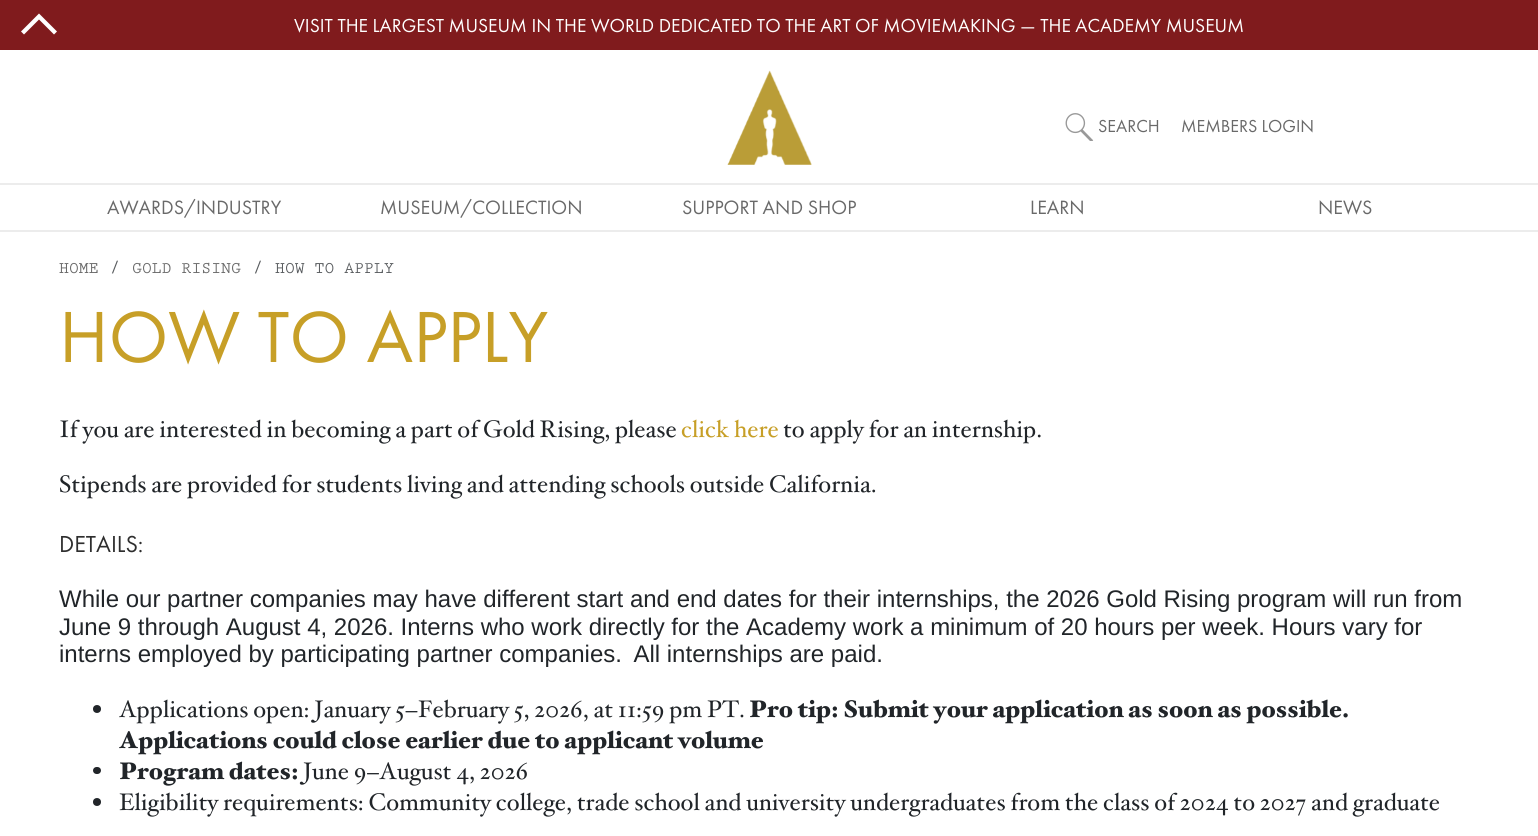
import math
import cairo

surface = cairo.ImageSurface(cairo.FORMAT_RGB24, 1538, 836)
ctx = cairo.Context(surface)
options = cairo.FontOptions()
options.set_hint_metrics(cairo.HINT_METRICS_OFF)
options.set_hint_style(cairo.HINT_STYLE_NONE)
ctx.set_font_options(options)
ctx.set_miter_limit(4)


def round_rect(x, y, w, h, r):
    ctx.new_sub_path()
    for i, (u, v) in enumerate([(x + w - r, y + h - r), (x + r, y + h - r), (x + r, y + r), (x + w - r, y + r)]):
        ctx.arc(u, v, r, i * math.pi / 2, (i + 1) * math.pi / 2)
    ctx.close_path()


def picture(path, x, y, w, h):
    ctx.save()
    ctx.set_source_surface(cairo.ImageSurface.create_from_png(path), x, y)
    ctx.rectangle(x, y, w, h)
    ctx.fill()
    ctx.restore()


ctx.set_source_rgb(1, 1, 1)
ctx.paint()
ctx.set_source_rgb(0.502, 0.106, 0.114)
ctx.rectangle(0, 0, 1538, 50)
ctx.fill()
ctx.set_source_rgb(1, 1, 1)
ctx.new_path()
ctx.move_to(21, 31.5)
ctx.line_to(24, 34.5)
ctx.line_to(39, 19.5)
ctx.line_to(54, 34.5)
ctx.line_to(57, 31.5)
ctx.line_to(39, 13.5)
ctx.close_path()
ctx.fill()
ctx.select_font_face("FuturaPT")
ctx.set_font_size(19.5)
ctx.move_to(294, 32)
ctx.show_text("VISIT THE LARGEST MUSEUM IN THE WORLD DEDICATED TO THE ART OF MOVIEMAKING — THE ACADEMY MUSEUM")
picture("img1.png", 727, 70, 85, 95)
picture("img2.png", 1065, 113, 29, 28)
ctx.set_font_size(18)
ctx.set_source_rgb(0.412, 0.412, 0.412)
ctx.move_to(1098, 132)
ctx.show_text("SEARCH")
ctx.move_to(1181, 132)
ctx.show_text("MEMBERS LOGIN")
ctx.set_source_rgb(0.922, 0.922, 0.922)
ctx.rectangle(0, 183, 1538, 2)
ctx.fill()
ctx.set_font_size(20)
ctx.set_source_rgb(0.412, 0.412, 0.412)
ctx.move_to(107, 214)
ctx.show_text("AWARDS/INDUSTRY")
ctx.move_to(380, 214)
ctx.show_text("MUSEUM/COLLECTION")
ctx.move_to(682, 214)
ctx.show_text("SUPPORT AND SHOP")
ctx.move_to(1030, 214)
ctx.show_text("LEARN")
ctx.move_to(1318, 214)
ctx.show_text("NEWS")
ctx.set_source_rgb(0.922, 0.922, 0.922)
ctx.rectangle(0, 230, 1538, 2)
ctx.fill()
ctx.select_font_face("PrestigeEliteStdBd", cairo.FONT_SLANT_NORMAL, cairo.FONT_WEIGHT_BOLD)
ctx.set_font_size(16.5)
ctx.set_source_rgb(0.412, 0.412, 0.412)
ctx.move_to(59, 273)
ctx.show_text("HOME")
ctx.set_source_rgb(0.349, 0.361, 0.373)
ctx.move_to(110, 273)
ctx.show_text("/")
ctx.set_source_rgb(0.412, 0.412, 0.412)
ctx.move_to(132, 273)
ctx.show_text("GOLD RISING")
ctx.set_source_rgb(0.349, 0.361, 0.373)
ctx.move_to(253, 273)
ctx.show_text("/")
ctx.move_to(275, 273)
ctx.show_text("HOW TO APPLY")
ctx.select_font_face("FuturaPT")
ctx.set_font_size(75)
ctx.set_source_rgb(0.78, 0.624, 0.153)
ctx.move_to(59, 362)
ctx.show_text("HOW TO APPLY")
ctx.select_font_face("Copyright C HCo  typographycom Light")
ctx.set_font_size(24)
ctx.set_source_rgb(0.129, 0.145, 0.161)
ctx.move_to(59, 437)
ctx.show_text("If you are interested in becoming a part of Gold Rising, please")
ctx.set_source_rgb(0.78, 0.624, 0.153)
ctx.move_to(681, 437)
ctx.show_text("click here")
ctx.set_source_rgb(0.129, 0.145, 0.161)
ctx.move_to(783, 437)
ctx.show_text("to apply for an internship.")
ctx.move_to(59, 492)
ctx.show_text("Stipends are provided for students living and attending schools outside California.")
ctx.select_font_face("FuturaPT")
ctx.set_source_rgb(0.18, 0.18, 0.18)
ctx.move_to(59, 552)
ctx.show_text("DETAILS:")
ctx.select_font_face("Liberation Sans")
ctx.set_source_rgb(0.129, 0.145, 0.161)
ctx.move_to(59, 607)
ctx.show_text("While our partner companies may have different start and end dates for their internships, the 2026 Gold Rising program will run from")
ctx.move_to(59, 635)
ctx.show_text("June 9 through August 4, 2026. Interns who work directly for the Academy work a minimum of 20 hours per week. Hours vary for")
ctx.move_to(59, 662)
ctx.show_text("interns employed by participating partner companies.  All internships are paid.")
ctx.new_path()
ctx.arc(97, 709, 4, 0, 2 * math.pi)
ctx.fill()
ctx.select_font_face("Copyright C HCo  typographycom Light")
ctx.move_to(119, 717)
ctx.show_text("Applications open: January 5–February 5, 2026, at 11:59 pm PT.")
ctx.select_font_face("Copyright C HCo  typographycom")
ctx.move_to(749, 717)
ctx.show_text("Pro tip: Submit your application as soon as possible.")
ctx.move_to(119, 748)
ctx.show_text("Applications could close earlier due to applicant volume")
round_rect(93, 767, 8, 7, 3.5)
ctx.fill()
ctx.move_to(119, 779)
ctx.show_text("Program dates:")
ctx.select_font_face("Copyright C HCo  typographycom Light")
ctx.move_to(303, 779)
ctx.show_text("June 9–August 4, 2026")
ctx.new_path()
ctx.arc(97, 802, 4, 0, 2 * math.pi)
ctx.fill()
ctx.move_to(119, 810)
ctx.show_text("Eligibility requirements: Community college, trade school and university undergraduates from the class of 2024 to 2027 and graduate")
surface.write_to_png("page.png")
